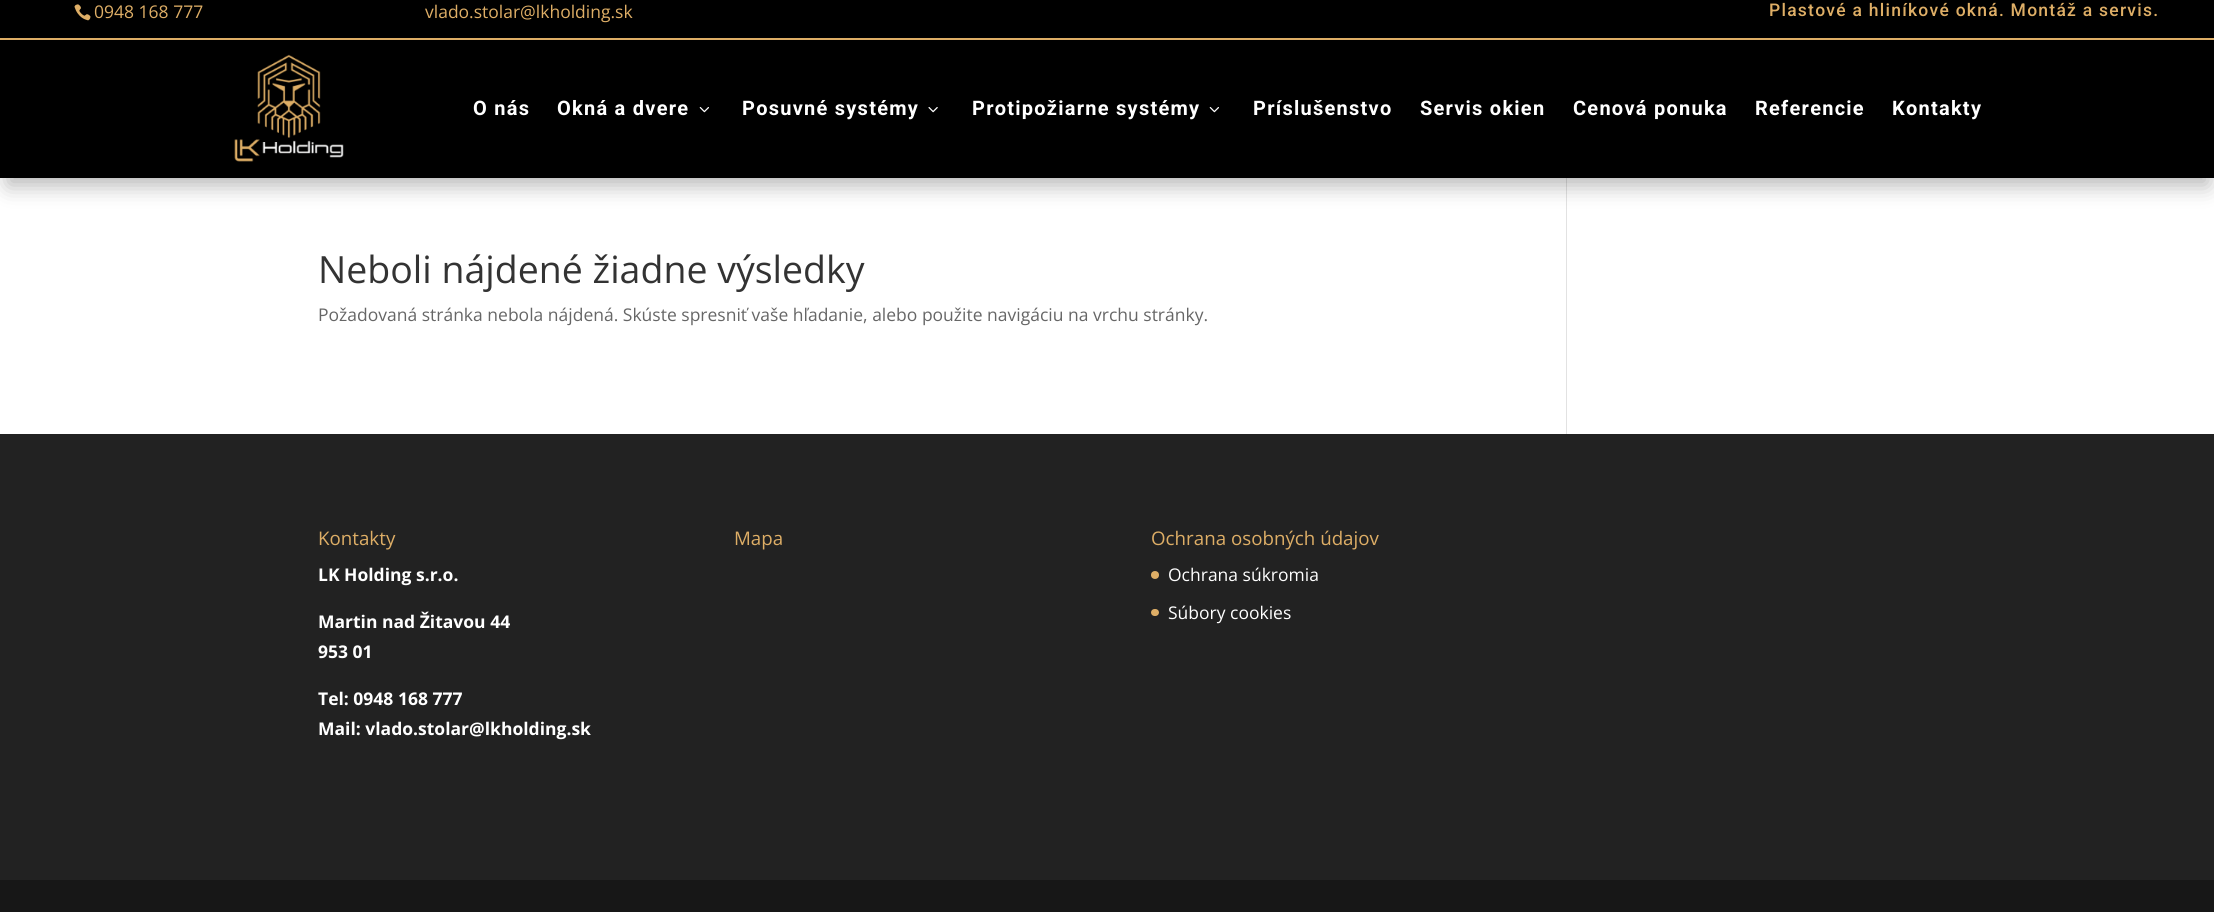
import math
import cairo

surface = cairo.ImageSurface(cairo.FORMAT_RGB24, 2214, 912)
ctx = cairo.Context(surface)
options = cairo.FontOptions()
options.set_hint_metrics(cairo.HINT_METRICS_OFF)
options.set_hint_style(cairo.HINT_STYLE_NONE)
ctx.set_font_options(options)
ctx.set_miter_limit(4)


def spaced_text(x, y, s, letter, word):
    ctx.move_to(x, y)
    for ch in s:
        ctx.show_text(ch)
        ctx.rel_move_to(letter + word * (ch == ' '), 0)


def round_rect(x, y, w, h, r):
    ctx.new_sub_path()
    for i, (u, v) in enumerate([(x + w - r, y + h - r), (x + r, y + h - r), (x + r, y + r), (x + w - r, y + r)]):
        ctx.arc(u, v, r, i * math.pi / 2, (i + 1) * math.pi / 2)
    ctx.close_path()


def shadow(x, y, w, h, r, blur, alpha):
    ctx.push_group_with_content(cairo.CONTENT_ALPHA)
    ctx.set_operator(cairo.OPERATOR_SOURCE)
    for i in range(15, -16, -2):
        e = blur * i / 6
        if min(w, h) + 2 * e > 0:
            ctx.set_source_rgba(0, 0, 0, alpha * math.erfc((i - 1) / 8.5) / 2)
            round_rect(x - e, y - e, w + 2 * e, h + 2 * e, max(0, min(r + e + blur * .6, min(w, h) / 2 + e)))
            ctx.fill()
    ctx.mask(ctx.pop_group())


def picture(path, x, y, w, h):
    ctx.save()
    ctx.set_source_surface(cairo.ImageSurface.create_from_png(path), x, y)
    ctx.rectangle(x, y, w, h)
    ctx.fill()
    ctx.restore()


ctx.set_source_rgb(1, 1, 1)
ctx.paint()
ctx.set_source_rgb(0, 0, 0)
ctx.rectangle(0, 0, 2214, 38)
ctx.fill()
ctx.set_source_rgb(0.871, 0.682, 0.4)
ctx.rectangle(0, 38, 2214, 2)
ctx.fill()
picture("img1.png", 74, 4, 17, 17)
ctx.select_font_face("Open Sans")
ctx.set_font_size(17.5)
ctx.move_to(94, 18)
ctx.show_text("0948 168 777")
ctx.move_to(425, 18)
ctx.show_text("vlado.stolar@lkholding.sk")
ctx.select_font_face("Roboto Medium")
spaced_text(1769, 16, "Plastové a hliníkové okná. Montáž a servis.", 1.25, 0)
ctx.set_source_rgb(0.886, 0.886, 0.886)
ctx.rectangle(1566, 178, 1, 256)
ctx.fill()
ctx.set_source_rgb(0, 0, 0)
shadow(8, 63, 2200, 122, 0, 11, 0.3)
ctx.set_source_rgb(0, 0, 0)
ctx.rectangle(0, 40, 2214, 138)
ctx.fill()
picture("img2.png", 234, 54, 110, 108)
ctx.select_font_face("Roboto", cairo.FONT_SLANT_NORMAL, cairo.FONT_WEIGHT_BOLD)
ctx.set_font_size(20)
ctx.set_source_rgb(1, 1, 1)
spaced_text(473, 115, "O nás", 1.25, 0)
spaced_text(557, 115, "Okná a dvere", 1.25, 0)
picture("img3.png", 699, 107, 10, 6)
spaced_text(742, 115, "Posuvné systémy", 1.25, 0)
picture("img4.png", 928, 107, 10, 6)
spaced_text(972, 115, "Protipožiarne systémy", 1.25, 0)
picture("img3.png", 1209, 107, 10, 6)
spaced_text(1253, 115, "Príslušenstvo", 1.25, 0)
spaced_text(1420, 115, "Servis okien", 1.25, 0)
spaced_text(1573, 115, "Cenová ponuka", 1.25, 0)
spaced_text(1755, 115, "Referencie", 1.25, 0)
spaced_text(1892, 115, "Kontakty", 1.25, 0)
ctx.select_font_face("Open Sans")
ctx.set_font_size(37.5)
ctx.set_source_rgb(0.2, 0.2, 0.2)
ctx.move_to(318, 283)
ctx.show_text("Neboli nájdené žiadne výsledky")
ctx.set_font_size(17.5)
ctx.set_source_rgb(0.4, 0.4, 0.4)
ctx.move_to(318, 321)
ctx.show_text("Požadovaná stránka nebola nájdená. Skúste spresniť vaše hľadanie, alebo použite navigáciu na vrchu stránky.")
ctx.set_source_rgb(0.133, 0.133, 0.133)
ctx.rectangle(0, 434, 2214, 446)
ctx.fill()
ctx.set_font_size(18.75)
ctx.set_source_rgb(0.871, 0.682, 0.4)
ctx.move_to(318, 545)
ctx.show_text("Kontakty")
ctx.select_font_face("Open Sans", cairo.FONT_SLANT_NORMAL, cairo.FONT_WEIGHT_BOLD)
ctx.set_font_size(17.5)
ctx.set_source_rgb(1, 1, 1)
ctx.move_to(318, 581)
ctx.show_text("LK Holding s.r.o.")
ctx.move_to(318, 628)
ctx.show_text("Martin nad Žitavou 44")
ctx.move_to(318, 658)
ctx.show_text("953 01")
ctx.move_to(318, 705)
ctx.show_text("Tel: 0948 168 777")
ctx.move_to(318, 735)
ctx.show_text("Mail: vlado.stolar@lkholding.sk")
ctx.select_font_face("Open Sans")
ctx.set_font_size(18.75)
ctx.set_source_rgb(0.871, 0.682, 0.4)
ctx.move_to(734, 545)
ctx.show_text("Mapa")
ctx.move_to(1151, 545)
ctx.show_text("Ochrana osobných údajov")
ctx.new_path()
ctx.arc(1155, 575, 4, 0, 2 * math.pi)
ctx.fill()
ctx.set_font_size(17.5)
ctx.set_source_rgb(1, 1, 1)
ctx.move_to(1168, 581)
ctx.show_text("Ochrana súkromia")
ctx.set_source_rgb(0.871, 0.682, 0.4)
round_rect(1151, 609, 8, 7, 3.5)
ctx.fill()
ctx.set_source_rgb(1, 1, 1)
ctx.move_to(1168, 619)
ctx.show_text("Súbory cookies")
ctx.set_source_rgb(0.09, 0.09, 0.09)
ctx.rectangle(0, 880, 2214, 32)
ctx.fill()
surface.write_to_png("page.png")
